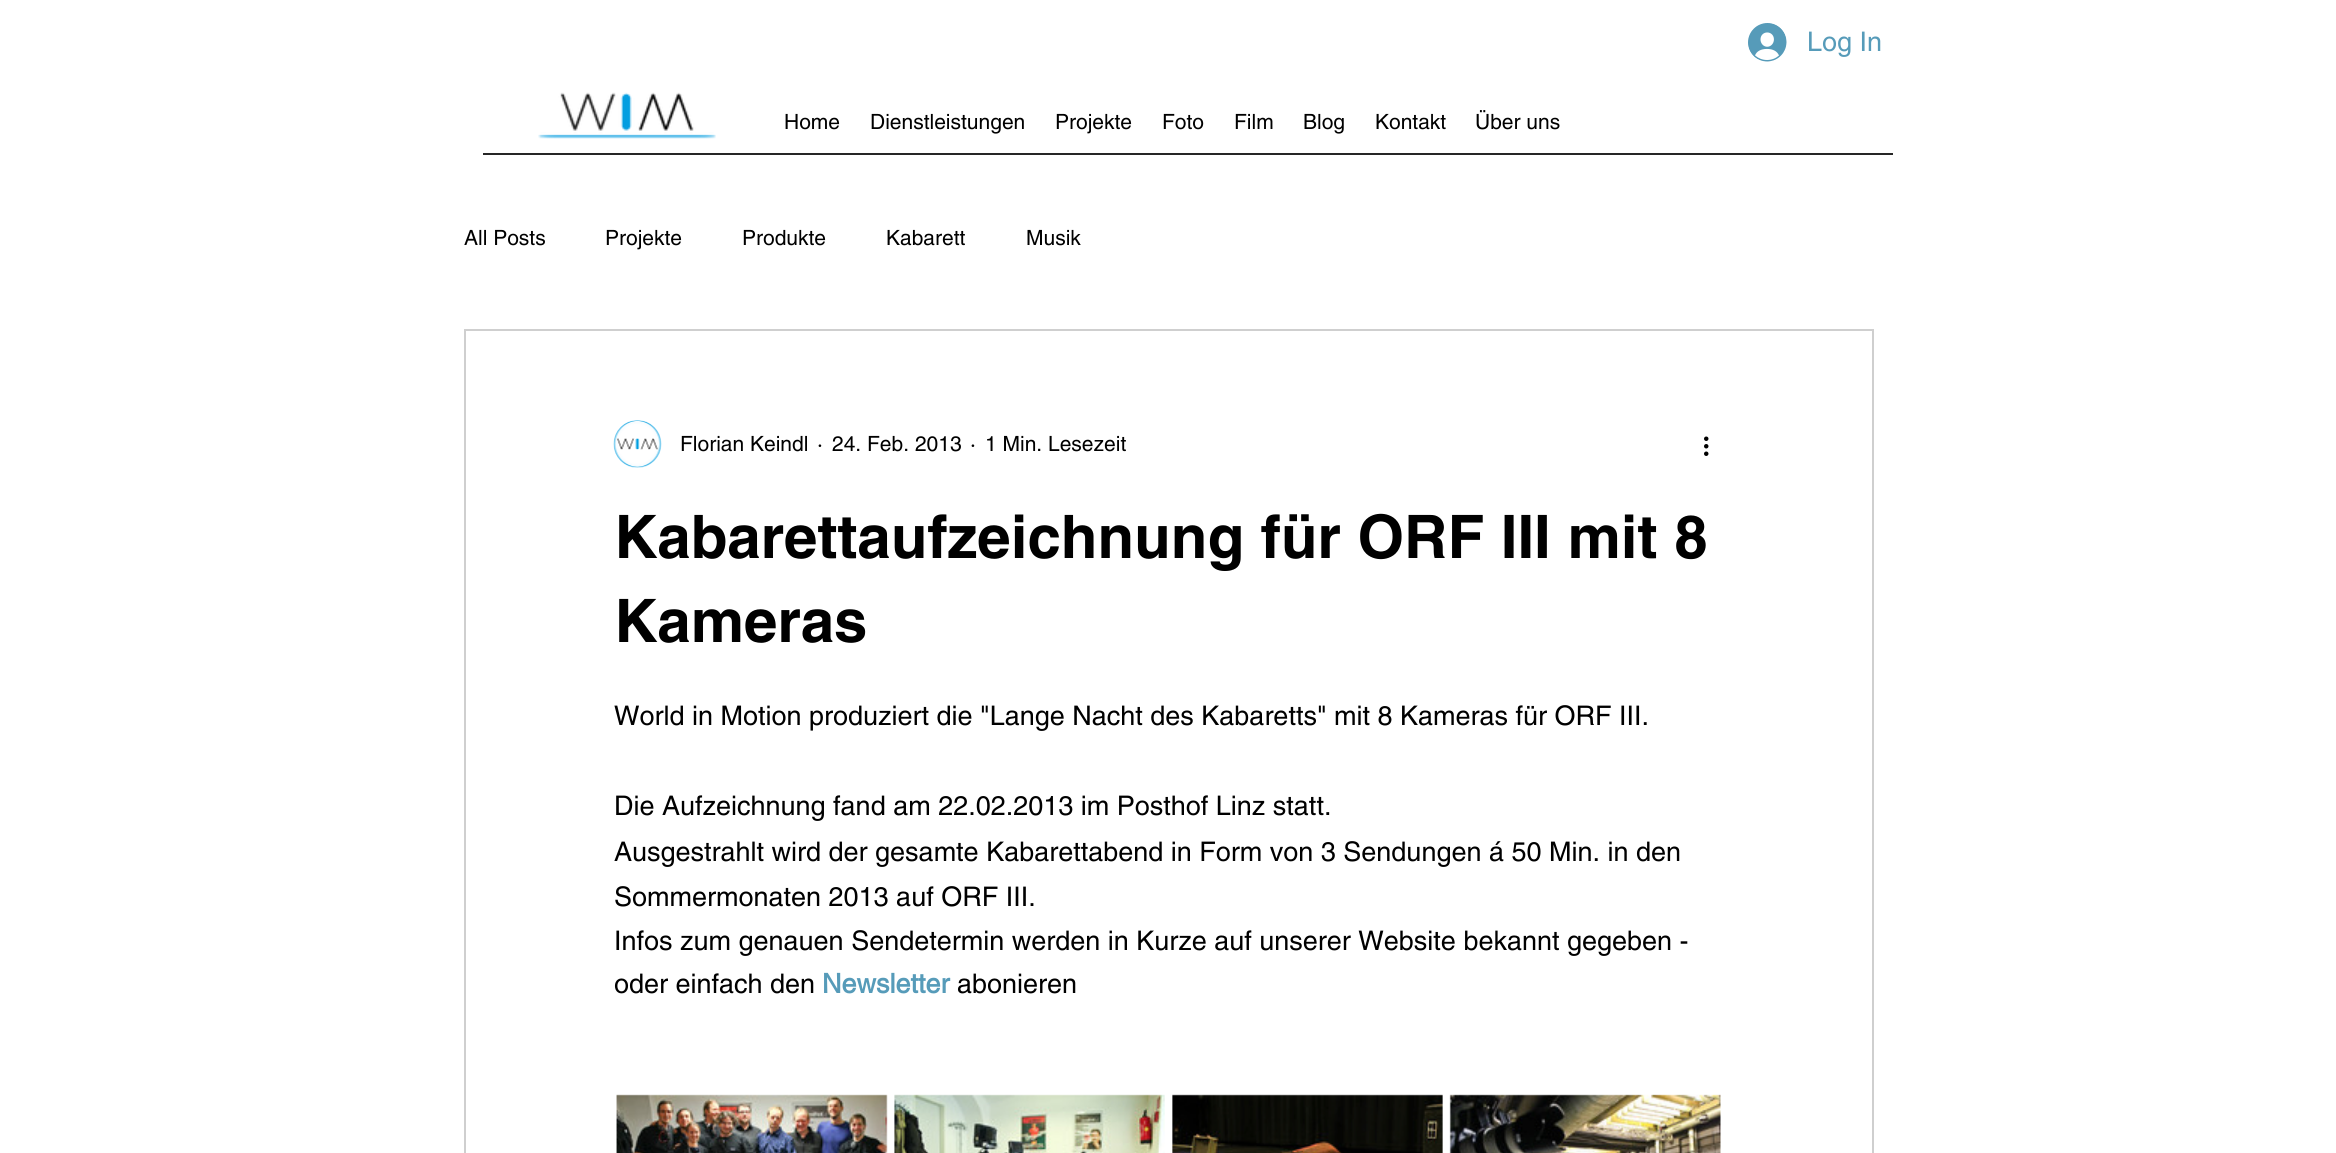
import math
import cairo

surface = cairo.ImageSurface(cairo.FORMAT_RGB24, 2336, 1153)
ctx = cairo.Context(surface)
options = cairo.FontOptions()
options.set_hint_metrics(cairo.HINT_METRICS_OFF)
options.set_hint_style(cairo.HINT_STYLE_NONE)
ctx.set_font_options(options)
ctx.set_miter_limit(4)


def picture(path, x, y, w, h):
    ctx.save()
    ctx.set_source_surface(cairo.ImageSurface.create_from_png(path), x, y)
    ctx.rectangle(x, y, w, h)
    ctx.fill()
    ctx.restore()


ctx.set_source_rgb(1, 1, 1)
ctx.paint()
picture("img1.png", 1748, 23, 39, 39)
ctx.select_font_face("helvetica")
ctx.set_font_size(27)
ctx.set_source_rgb(0.337, 0.608, 0.725)
ctx.move_to(1807, 51)
ctx.show_text("Log In")
picture("img2.png", 538, 92, 178, 47)
ctx.set_font_size(21)
ctx.set_source_rgb(0, 0, 0)
ctx.move_to(784, 129)
ctx.show_text("Home")
ctx.move_to(870, 129)
ctx.show_text("Dienstleistungen")
ctx.move_to(1055, 129)
ctx.show_text("Projekte")
ctx.move_to(1162, 129)
ctx.show_text("Foto")
ctx.move_to(1234, 129)
ctx.show_text("Film")
ctx.move_to(1303, 129)
ctx.show_text("Blog")
ctx.move_to(1375, 129)
ctx.show_text("Kontakt")
ctx.move_to(1475, 129)
ctx.show_text("Über uns")
ctx.set_source_rgb(0.149, 0.149, 0.149)
ctx.rectangle(483, 153, 1410, 2)
ctx.fill()
ctx.set_source_rgb(0, 0, 0)
ctx.move_to(464, 245)
ctx.show_text("All Posts")
ctx.move_to(605, 245)
ctx.show_text("Projekte")
ctx.move_to(742, 245)
ctx.show_text("Produkte")
ctx.move_to(886, 245)
ctx.show_text("Kabarett")
ctx.move_to(1026, 245)
ctx.show_text("Musik")
ctx.rectangle(465, 330, 1408, 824)
ctx.set_source_rgb(0.812, 0.812, 0.812)
ctx.stroke()
picture("img3.png", 613, 420, 49, 48)
ctx.set_source_rgb(0, 0, 0)
ctx.move_to(680, 451)
ctx.show_text("Florian Keindl")
ctx.move_to(817, 451)
ctx.show_text("·")
ctx.move_to(832, 451)
ctx.show_text("24. Feb. 2013")
ctx.move_to(970, 451)
ctx.show_text("·")
ctx.move_to(985, 451)
ctx.show_text("1 Min. Lesezeit")
picture("img4.png", 1704, 436, 5, 20)
ctx.select_font_face("helvetica", cairo.FONT_SLANT_NORMAL, cairo.FONT_WEIGHT_BOLD)
ctx.set_font_size(60)
ctx.move_to(614, 558)
ctx.show_text("Kabarettaufzeichnung für ORF III mit 8")
ctx.move_to(614, 642)
ctx.show_text("Kameras")
ctx.select_font_face("helvetica")
ctx.set_font_size(27)
ctx.move_to(614, 725)
ctx.show_text("World in Motion produziert die \"Lange Nacht des Kabaretts\" mit 8 Kameras für ORF III.")
ctx.move_to(614, 815)
ctx.show_text("Die Aufzeichnung fand am 22.02.2013 im Posthof Linz statt.")
ctx.move_to(614, 861)
ctx.show_text("Ausgestrahlt wird der gesamte Kabarettabend in Form von 3 Sendungen á 50 Min. in den")
ctx.move_to(614, 906)
ctx.show_text("Sommermonaten 2013 auf ORF III.")
ctx.move_to(614, 950)
ctx.show_text("Infos zum genauen Sendetermin werden in Kurze auf unserer Website bekannt gegeben -")
ctx.move_to(614, 993)
ctx.show_text("oder einfach den")
ctx.select_font_face("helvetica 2", cairo.FONT_SLANT_NORMAL, cairo.FONT_WEIGHT_BOLD)
ctx.set_source_rgb(0.337, 0.608, 0.725)
ctx.move_to(822, 993)
ctx.show_text("Newsletter")
ctx.select_font_face("helvetica")
ctx.set_source_rgb(0, 0, 0)
ctx.move_to(957, 993)
ctx.show_text("abonieren")
picture("img5.png", 616, 1094, 1105, 59)
surface.write_to_png("page.png")
